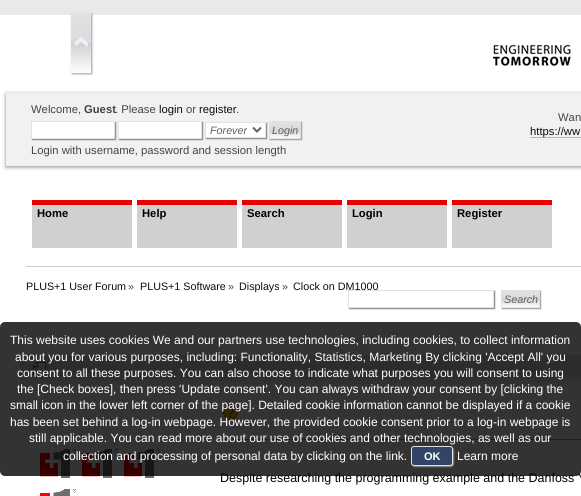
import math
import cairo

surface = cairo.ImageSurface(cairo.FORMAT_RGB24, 581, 496)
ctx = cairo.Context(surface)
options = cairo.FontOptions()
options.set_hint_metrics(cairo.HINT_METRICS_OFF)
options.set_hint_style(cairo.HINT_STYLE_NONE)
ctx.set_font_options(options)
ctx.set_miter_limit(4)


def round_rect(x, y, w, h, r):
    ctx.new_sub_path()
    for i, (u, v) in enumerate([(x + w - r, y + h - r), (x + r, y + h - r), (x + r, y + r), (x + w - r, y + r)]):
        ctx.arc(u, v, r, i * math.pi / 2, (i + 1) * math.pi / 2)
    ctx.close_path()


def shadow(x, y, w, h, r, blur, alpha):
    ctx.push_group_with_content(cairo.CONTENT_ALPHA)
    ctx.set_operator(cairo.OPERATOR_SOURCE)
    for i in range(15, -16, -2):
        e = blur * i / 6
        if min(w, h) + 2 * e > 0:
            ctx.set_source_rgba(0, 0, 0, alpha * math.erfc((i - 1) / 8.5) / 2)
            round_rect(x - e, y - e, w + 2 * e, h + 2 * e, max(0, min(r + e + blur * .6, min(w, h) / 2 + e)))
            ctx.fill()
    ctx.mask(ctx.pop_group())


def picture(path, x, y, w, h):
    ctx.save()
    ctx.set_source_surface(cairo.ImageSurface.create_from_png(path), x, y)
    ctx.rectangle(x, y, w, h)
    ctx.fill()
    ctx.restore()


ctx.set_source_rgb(0.914, 0.914, 0.914)
ctx.paint()
ctx.set_source_rgb(1, 1, 1)
ctx.rectangle(0, 15, 581, 481)
ctx.fill()
ctx.set_source_rgb(0.62, 0.62, 0.62)
shadow(72, 14, 20, 60, 0, 1, 1)
gradient = cairo.LinearGradient(81, 13, 81, 73)
gradient.add_color_stop_rgba(0, 0.886, 0.886, 0.886, 1)
gradient.add_color_stop_rgba(0.5, 0.859, 0.859, 0.859, 1)
gradient.add_color_stop_rgba(0.51, 0.82, 0.82, 0.82, 1)
gradient.add_color_stop_rgba(1, 0.996, 0.996, 0.996, 1)
ctx.set_source(gradient)
ctx.rectangle(71, 13, 20, 60)
ctx.fill()
picture("img1.png", 73, 36, 16, 12)
picture("img2.png", 493, 44, 78, 22)
ctx.set_source_rgb(0.533, 0.533, 0.533)
shadow(6, 94, 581, 73, 0, 2, 1)
ctx.set_source_rgb(0.945, 0.945, 0.945)
ctx.rectangle(6, 93, 575, 73)
ctx.fill()
ctx.select_font_face("Liberation Sans")
ctx.set_font_size(11.25)
ctx.set_source_rgb(0.267, 0.267, 0.267)
ctx.move_to(31, 113)
ctx.show_text("Welcome,")
ctx.select_font_face("Liberation Sans", cairo.FONT_SLANT_NORMAL, cairo.FONT_WEIGHT_BOLD)
ctx.move_to(84, 113)
ctx.show_text("Guest")
ctx.select_font_face("Liberation Sans")
ctx.move_to(115, 113)
ctx.show_text(". Please")
ctx.set_source_rgb(0.051, 0.051, 0.051)
ctx.move_to(159, 113)
ctx.show_text("login")
ctx.set_source_rgb(0.267, 0.267, 0.267)
ctx.move_to(186, 113)
ctx.show_text("or")
ctx.set_source_rgb(0.051, 0.051, 0.051)
ctx.move_to(199, 113)
ctx.show_text("register")
ctx.set_source_rgb(0.267, 0.267, 0.267)
ctx.move_to(236, 113)
ctx.show_text(".")
ctx.set_source_rgb(0.533, 0.533, 0.533)
shadow(32, 122, 84, 18, 0, 0.5, 1)
ctx.set_source_rgb(1, 1, 1)
ctx.rectangle(31.5, 121.5, 83, 17)
ctx.fill_preserve()
ctx.set_source_rgb(0.882, 0.882, 0.882)
ctx.set_line_width(1)
ctx.stroke()
ctx.set_source_rgb(0.533, 0.533, 0.533)
shadow(119, 122, 84, 18, 0, 0.5, 1)
ctx.set_source_rgb(1, 1, 1)
ctx.rectangle(118.5, 121.5, 83, 17)
ctx.fill_preserve()
ctx.set_source_rgb(0.882, 0.882, 0.882)
ctx.stroke()
ctx.set_source_rgb(0.533, 0.533, 0.533)
shadow(206, 123, 61, 16, 0, 0.5, 1)
ctx.set_source_rgb(1, 1, 1)
ctx.rectangle(205.5, 122.5, 60, 15)
ctx.fill_preserve()
ctx.set_source_rgb(0.882, 0.882, 0.882)
ctx.stroke()
ctx.new_path()
ctx.move_to(253, 127.5)
ctx.line_to(257, 131.5)
ctx.line_to(261, 127.5)
ctx.set_source_rgb(0.369, 0.369, 0.369)
ctx.set_line_width(2)
ctx.stroke()
ctx.select_font_face("Liberation Sans", cairo.FONT_SLANT_ITALIC)
ctx.set_font_size(10.75)
ctx.move_to(210, 134)
ctx.show_text("Forever")
ctx.set_source_rgb(0.62, 0.62, 0.62)
shadow(270, 122, 32, 18, 0, 0.5, 1)
gradient = cairo.LinearGradient(285, 122, 285, 138)
gradient.add_color_stop_rgba(0, 0.886, 0.886, 0.886, 1)
gradient.add_color_stop_rgba(0.5, 0.859, 0.859, 0.859, 1)
gradient.add_color_stop_rgba(0.51, 0.82, 0.82, 0.82, 1)
gradient.add_color_stop_rgba(1, 0.996, 0.996, 0.996, 1)
ctx.set_source(gradient)
ctx.rectangle(270, 122, 30, 16)
ctx.fill()
ctx.rectangle(269.5, 121.5, 31, 17)
ctx.set_source_rgb(0.882, 0.882, 0.882)
ctx.set_line_width(1)
ctx.stroke()
ctx.set_source_rgb(0.369, 0.369, 0.369)
ctx.move_to(272, 134)
ctx.show_text("Login")
ctx.select_font_face("Liberation Sans")
ctx.set_font_size(11.25)
ctx.set_source_rgb(0.267, 0.267, 0.267)
ctx.move_to(31, 154)
ctx.show_text("Login with username, password and session length")
ctx.move_to(558, 121)
ctx.show_text("Wan")
ctx.set_source_rgb(0.659, 0.714, 0.812)
ctx.rectangle(530, 137, 51, 1)
ctx.fill()
ctx.set_source_rgb(0.051, 0.051, 0.051)
ctx.move_to(530, 135)
ctx.show_text("https://ww")
ctx.set_source_rgb(0.533, 0.533, 0.533)
shadow(349, 291, 146, 18, 0, 0.5, 1)
ctx.set_font_size(10.75)
ctx.set_source_rgb(0.051, 0.051, 0.051)
ctx.move_to(293, 290)
ctx.show_text("Clock on DM1000")
ctx.set_source_rgb(1, 1, 1)
ctx.rectangle(348.5, 290.5, 145, 17)
ctx.fill_preserve()
ctx.set_source_rgb(0.882, 0.882, 0.882)
ctx.stroke()
ctx.set_source_rgb(0.62, 0.62, 0.62)
shadow(502, 291, 39, 18, 0, 0.5, 1)
gradient = cairo.LinearGradient(521, 291, 521, 307)
gradient.add_color_stop_rgba(0, 0.886, 0.886, 0.886, 1)
gradient.add_color_stop_rgba(0.5, 0.859, 0.859, 0.859, 1)
gradient.add_color_stop_rgba(0.51, 0.82, 0.82, 0.82, 1)
gradient.add_color_stop_rgba(1, 0.996, 0.996, 0.996, 1)
ctx.set_source(gradient)
ctx.rectangle(502, 291, 37, 16)
ctx.fill()
ctx.rectangle(501.5, 290.5, 38, 17)
ctx.set_source_rgb(0.882, 0.882, 0.882)
ctx.stroke()
ctx.select_font_face("Liberation Sans", cairo.FONT_SLANT_ITALIC)
ctx.set_source_rgb(0.369, 0.369, 0.369)
ctx.move_to(504, 303)
ctx.show_text("Search")
ctx.set_source_rgb(0.816, 0.816, 0.816)
ctx.rectangle(32, 205, 100, 43)
ctx.fill()
ctx.set_source_rgb(0.914, 0, 0)
ctx.rectangle(32, 200, 100, 5)
ctx.fill()
ctx.select_font_face("Liberation Sans", cairo.FONT_SLANT_NORMAL, cairo.FONT_WEIGHT_BOLD)
ctx.set_font_size(11.25)
ctx.set_source_rgb(0, 0, 0)
ctx.move_to(37, 217)
ctx.show_text("Home")
ctx.set_source_rgb(0.816, 0.816, 0.816)
ctx.rectangle(137, 205, 100, 43)
ctx.fill()
ctx.set_source_rgb(0.914, 0, 0)
ctx.rectangle(137, 200, 100, 5)
ctx.fill()
ctx.set_source_rgb(0, 0, 0)
ctx.move_to(142, 217)
ctx.show_text("Help")
ctx.set_source_rgb(0.816, 0.816, 0.816)
ctx.rectangle(242, 205, 100, 43)
ctx.fill()
ctx.set_source_rgb(0.914, 0, 0)
ctx.rectangle(242, 200, 100, 5)
ctx.fill()
ctx.set_source_rgb(0, 0, 0)
ctx.move_to(247, 217)
ctx.show_text("Search")
ctx.set_source_rgb(0.816, 0.816, 0.816)
ctx.rectangle(347, 205, 100, 43)
ctx.fill()
ctx.set_source_rgb(0.914, 0, 0)
ctx.rectangle(347, 200, 100, 5)
ctx.fill()
ctx.set_source_rgb(0, 0, 0)
ctx.move_to(352, 217)
ctx.show_text("Login")
ctx.set_source_rgb(0.816, 0.816, 0.816)
ctx.rectangle(452, 205, 100, 43)
ctx.fill()
ctx.set_source_rgb(0.914, 0, 0)
ctx.rectangle(452, 200, 100, 5)
ctx.fill()
ctx.set_source_rgb(0, 0, 0)
ctx.move_to(457, 217)
ctx.show_text("Register")
ctx.set_source_rgb(0.8, 0.8, 0.8)
ctx.rectangle(26, 266, 555, 1)
ctx.fill()
ctx.select_font_face("Liberation Sans")
ctx.set_font_size(10.75)
ctx.set_source_rgb(0.051, 0.051, 0.051)
ctx.move_to(26, 290)
ctx.show_text("PLUS+1 User Forum")
ctx.set_source_rgb(0.267, 0.267, 0.267)
ctx.move_to(128, 290)
ctx.show_text("»")
ctx.set_source_rgb(0.051, 0.051, 0.051)
ctx.move_to(140, 290)
ctx.show_text("PLUS+1 Software")
ctx.set_source_rgb(0.267, 0.267, 0.267)
ctx.move_to(228, 290)
ctx.show_text("»")
ctx.set_source_rgb(0.051, 0.051, 0.051)
ctx.move_to(239, 290)
ctx.show_text("Displays")
ctx.set_source_rgb(0.267, 0.267, 0.267)
ctx.move_to(282, 290)
ctx.show_text("»")
gradient = cairo.LinearGradient(382, 355, 382, 386)
gradient.add_color_stop_rgba(0, 0.886, 0.886, 0.886, 1)
gradient.add_color_stop_rgba(0.5, 0.859, 0.859, 0.859, 1)
gradient.add_color_stop_rgba(0.51, 0.82, 0.82, 0.82, 1)
gradient.add_color_stop_rgba(1, 0.996, 0.996, 0.996, 1)
ctx.set_source(gradient)
ctx.rectangle(20, 355, 561, 30)
ctx.fill()
picture("img3.png", 33, 362, 13, 15)
picture("img4.png", 40, 449, 36, 29)
picture("img4.png", 82, 449, 36, 29)
picture("img4.png", 124, 449, 36, 29)
picture("img5.png", 40, 489, 36, 7)
picture("img6.png", 223, 405, 15, 15)
ctx.set_source_rgb(0.6, 0.6, 0.667)
ctx.rectangle(220, 439, 361, 1)
ctx.fill()
ctx.set_font_size(12.5)
ctx.set_source_rgb(0, 0, 0)
ctx.move_to(220, 482)
ctx.show_text("Despite researching the programming example and the Danfoss Y")
ctx.set_source_rgba(0, 0, 0, 0.8)
round_rect(0, 322, 581, 154, 5)
ctx.fill()
ctx.set_font_size(12)
ctx.set_source_rgb(1, 1, 1)
ctx.move_to(10, 344)
ctx.show_text("This website uses cookies We and our partners use technologies, including cookies, to collect information")
ctx.move_to(15, 361)
ctx.show_text("about you for various purposes, including: Functionality, Statistics, Marketing By clicking 'Accept All' you")
ctx.move_to(17, 377)
ctx.show_text("consent to all these purposes. You can also choose to indicate what purposes you will consent to using")
ctx.move_to(17, 393)
ctx.show_text("the [Check boxes], then press 'Update consent'. You can always withdraw your consent by [clicking the")
ctx.move_to(10, 409)
ctx.show_text("small icon in the lower left corner of the page]. Detailed cookie information cannot be displayed if a cookie")
ctx.move_to(10, 426)
ctx.show_text("has been set behind a log-in webpage. However, the provided cookie consent prior to a log-in webpage is")
ctx.move_to(29, 442)
ctx.show_text("still applicable. You can read more about our use of cookies and other technologies, as well as our")
ctx.move_to(63, 460)
ctx.show_text("collection and processing of personal data by clicking on the link.")
ctx.set_source_rgb(0.533, 0.533, 0.533)
shadow(412, 447, 42, 20, 3, 0.5, 1)
ctx.set_source_rgb(0.2, 0.267, 0.4)
round_rect(411.5, 446.5, 41, 19, 2.5)
ctx.fill_preserve()
ctx.set_source_rgb(0.882, 0.882, 0.882)
ctx.stroke()
ctx.select_font_face("Liberation Sans", cairo.FONT_SLANT_NORMAL, cairo.FONT_WEIGHT_BOLD)
ctx.set_font_size(11)
ctx.set_source_rgb(1, 1, 1)
ctx.move_to(424, 460)
ctx.show_text("OK")
ctx.select_font_face("Liberation Sans")
ctx.set_font_size(12)
ctx.move_to(457, 460)
ctx.show_text("Learn more")
surface.write_to_png("page.png")
